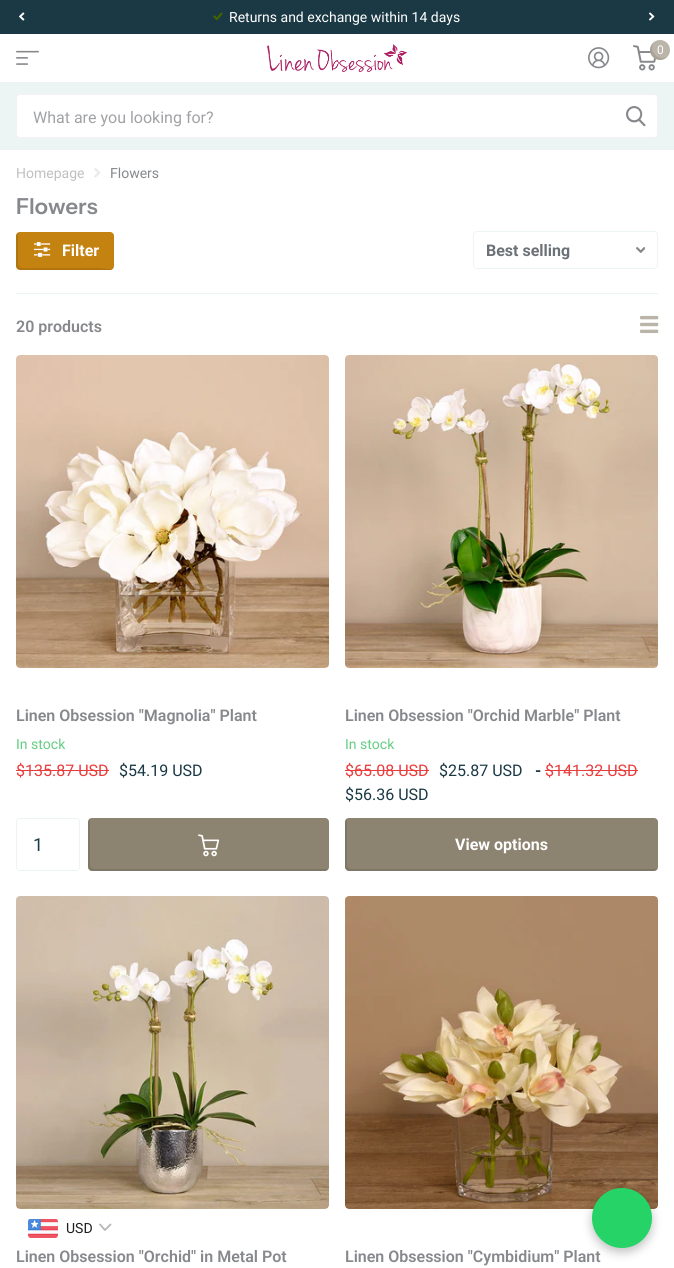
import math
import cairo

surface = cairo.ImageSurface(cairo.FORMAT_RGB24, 674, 1268)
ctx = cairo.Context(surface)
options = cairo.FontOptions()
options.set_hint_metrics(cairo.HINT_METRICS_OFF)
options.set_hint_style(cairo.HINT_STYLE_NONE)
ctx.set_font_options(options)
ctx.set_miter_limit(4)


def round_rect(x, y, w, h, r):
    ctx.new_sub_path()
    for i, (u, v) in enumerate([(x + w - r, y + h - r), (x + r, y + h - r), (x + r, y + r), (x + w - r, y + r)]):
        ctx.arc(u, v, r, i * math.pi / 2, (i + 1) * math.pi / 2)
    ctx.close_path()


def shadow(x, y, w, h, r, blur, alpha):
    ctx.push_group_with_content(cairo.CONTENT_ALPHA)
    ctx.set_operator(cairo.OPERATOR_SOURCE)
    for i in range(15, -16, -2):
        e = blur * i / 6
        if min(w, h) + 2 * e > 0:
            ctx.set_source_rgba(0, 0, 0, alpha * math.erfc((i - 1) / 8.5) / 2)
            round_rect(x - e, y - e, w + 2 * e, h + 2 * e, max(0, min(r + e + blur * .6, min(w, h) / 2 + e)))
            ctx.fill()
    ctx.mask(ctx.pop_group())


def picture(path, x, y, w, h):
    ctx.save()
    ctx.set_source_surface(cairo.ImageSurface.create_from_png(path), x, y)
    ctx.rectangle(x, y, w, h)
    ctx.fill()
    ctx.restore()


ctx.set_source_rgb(1, 1, 1)
ctx.paint()
picture("img1.png", 16, 50, 23, 15)
ctx.set_source_rgb(0.102, 0.224, 0.271)
ctx.rectangle(0, 0, 674, 34)
ctx.fill()
picture("img2.png", 19, 12, 6, 9)
picture("img3.png", 213, 12, 10, 9)
ctx.select_font_face("Roboto")
ctx.set_font_size(14)
ctx.set_source_rgb(1, 1, 1)
ctx.move_to(229, 22)
ctx.show_text("Returns and exchange within 14 days")
picture("img4.png", 649, 12, 6, 9)
picture("img5.png", 588, 47, 22, 22)
picture("img6.png", 633, 45, 23, 26)
ctx.set_source_rgb(0.729, 0.706, 0.663)
ctx.arc(660, 50, 10, 0, 2 * math.pi)
ctx.fill()
ctx.set_source_rgba(0, 0, 0, 0.1)
ctx.new_path()
ctx.move_to(668, 56.5)
ctx.curve_to(659, 62.5, 647.5, 51.5, 654, 42)
ctx.curve_to(649, 45.5, 648.5, 53, 653, 57)
ctx.curve_to(657, 61, 664, 61, 668, 56.5)
ctx.close_path()
ctx.fill()
ctx.set_font_size(12)
ctx.set_source_rgb(1, 1, 1)
ctx.move_to(657, 54)
ctx.show_text("0")
picture("img7.png", 267, 44, 140, 28)
ctx.set_source_rgb(0.929, 0.957, 0.957)
ctx.rectangle(0, 82, 674, 68)
ctx.fill()
ctx.set_source_rgb(1, 1, 1)
round_rect(16.5, 94.5, 641, 43, 3.5)
ctx.fill_preserve()
ctx.set_source_rgb(0.949, 0.949, 0.949)
ctx.set_line_width(1)
ctx.stroke()
ctx.set_font_size(16)
ctx.set_source_rgb(0.627, 0.635, 0.647)
ctx.move_to(33, 123)
ctx.show_text("What are you looking for?")
picture("img8.png", 626, 106, 20, 21)
ctx.set_font_size(14)
ctx.set_source_rgb(0.749, 0.753, 0.761)
ctx.move_to(16, 178)
ctx.show_text("Homepage")
picture("img9.png", 94, 168, 7, 10)
ctx.set_source_rgb(0.525, 0.533, 0.549)
ctx.move_to(110, 178)
ctx.show_text("Flowers")
ctx.select_font_face("Instrument Sans SemiBold")
ctx.set_font_size(22)
ctx.move_to(16, 214)
ctx.show_text("Flowers")
ctx.set_source_rgb(0.929, 0.957, 0.957)
ctx.rectangle(16, 293, 642, 1)
ctx.fill()
ctx.set_source_rgb(0.769, 0.51, 0.067)
round_rect(16, 232, 98, 38, 4)
ctx.fill()
ctx.set_source_rgba(0, 0, 0, 0.1)
ctx.new_path()
ctx.move_to(18, 232)
ctx.curve_to(17, 233, 16, 234, 16, 236)
ctx.line_to(16, 266)
ctx.curve_to(16, 268, 18, 270, 20, 270)
ctx.line_to(110, 270)
ctx.curve_to(112, 270, 113, 269, 114, 268)
ctx.curve_to(109, 270, 103, 268, 97, 268)
ctx.line_to(37, 268)
ctx.curve_to(17, 268, 18, 271, 18, 254)
ctx.close_path()
ctx.fill()
picture("img10.png", 34, 242, 17, 15)
ctx.select_font_face("Roboto", cairo.FONT_SLANT_NORMAL, cairo.FONT_WEIGHT_BOLD)
ctx.set_font_size(16)
ctx.set_source_rgb(1, 1, 1)
ctx.move_to(62, 256)
ctx.show_text("Filter")
picture("img11.png", 636, 247, 9, 6)
round_rect(473.5, 231.5, 184, 37, 3.5)
ctx.set_source_rgb(0.929, 0.957, 0.957)
ctx.stroke()
ctx.set_source_rgb(0.42, 0.443, 0.467)
ctx.move_to(486, 256)
ctx.show_text("Best selling")
ctx.select_font_face("Roboto SemiBold")
ctx.set_source_rgb(0.525, 0.533, 0.549)
ctx.move_to(16, 332)
ctx.show_text("20 products")
picture("img12.png", 640, 315, 19, 19)
picture("img13.png", 16, 355, 313, 313)
ctx.move_to(16, 721)
ctx.show_text("Linen Obsession \"Magnolia\" Plant")
ctx.select_font_face("Roboto")
ctx.set_font_size(14)
ctx.set_source_rgb(0.392, 0.804, 0.51)
ctx.move_to(16, 749)
ctx.show_text("In stock")
ctx.set_font_size(16)
ctx.set_source_rgb(0.914, 0.239, 0.239)
ctx.move_to(16, 776)
ctx.show_text("$135.87 USD")
ctx.rectangle(16, 770, 93, 1)
ctx.fill()
ctx.set_source_rgb(0.102, 0.224, 0.271)
ctx.move_to(119, 776)
ctx.show_text("$54.19 USD")
round_rect(16.5, 818.5, 63, 52, 3.5)
ctx.set_source_rgb(0.929, 0.957, 0.957)
ctx.stroke()
ctx.set_font_size(18)
ctx.set_source_rgb(0.102, 0.224, 0.271)
ctx.move_to(33, 851)
ctx.show_text("1")
ctx.set_source_rgb(0.549, 0.514, 0.443)
round_rect(88, 818, 241, 53, 4)
ctx.fill()
ctx.set_source_rgba(0, 0, 0, 0.1)
ctx.new_path()
ctx.move_to(90, 818)
ctx.curve_to(89, 819, 88, 820, 88, 822)
ctx.line_to(88, 867)
ctx.curve_to(88, 869, 90, 871, 92, 871)
ctx.line_to(325, 871)
ctx.curve_to(327, 871, 328, 870, 329, 869)
ctx.line_to(327, 869)
ctx.line_to(94, 869)
ctx.curve_to(92, 869, 90, 867, 90, 865)
ctx.line_to(90, 820)
ctx.close_path()
ctx.fill()
picture("img14.png", 198, 834, 22, 23)
picture("img15.png", 345, 355, 313, 313)
ctx.select_font_face("Roboto SemiBold")
ctx.set_font_size(16)
ctx.set_source_rgb(0.525, 0.533, 0.549)
ctx.move_to(345, 721)
ctx.show_text("Linen Obsession \"Orchid Marble\" Plant")
ctx.select_font_face("Roboto")
ctx.set_font_size(14)
ctx.set_source_rgb(0.392, 0.804, 0.51)
ctx.move_to(345, 749)
ctx.show_text("In stock")
ctx.set_font_size(16)
ctx.set_source_rgb(0.914, 0.239, 0.239)
ctx.move_to(345, 776)
ctx.show_text("$65.08 USD")
ctx.rectangle(345, 770, 84, 1)
ctx.fill()
ctx.set_source_rgb(0.102, 0.224, 0.271)
ctx.move_to(439, 776)
ctx.show_text("$25.87 USD")
ctx.select_font_face("Roboto", cairo.FONT_SLANT_NORMAL, cairo.FONT_WEIGHT_BOLD)
ctx.move_to(535, 776)
ctx.show_text("-")
ctx.select_font_face("Roboto")
ctx.set_source_rgb(0.914, 0.239, 0.239)
ctx.move_to(545, 776)
ctx.show_text("$141.32 USD")
ctx.rectangle(545, 770, 93, 1)
ctx.fill()
ctx.set_source_rgb(0.102, 0.224, 0.271)
ctx.move_to(345, 800)
ctx.show_text("$56.36 USD")
ctx.set_source_rgb(0.549, 0.514, 0.443)
round_rect(345, 818, 313, 53, 4)
ctx.fill()
ctx.set_source_rgba(0, 0, 0, 0.1)
ctx.new_path()
ctx.move_to(347, 818)
ctx.curve_to(346, 819, 345, 820, 345, 822)
ctx.line_to(345, 867)
ctx.curve_to(345, 869, 347, 871, 349, 871)
ctx.line_to(654, 871)
ctx.curve_to(656, 871, 657, 870, 658, 869)
ctx.line_to(656, 869)
ctx.line_to(351, 869)
ctx.curve_to(349, 869, 347, 867, 347, 865)
ctx.line_to(347, 820)
ctx.close_path()
ctx.fill()
ctx.select_font_face("Roboto", cairo.FONT_SLANT_NORMAL, cairo.FONT_WEIGHT_BOLD)
ctx.set_source_rgb(1, 1, 1)
ctx.move_to(455, 850)
ctx.show_text("View options")
picture("img16.png", 16, 896, 313, 313)
ctx.select_font_face("Roboto SemiBold")
ctx.set_source_rgb(0.525, 0.533, 0.549)
ctx.move_to(16, 1262)
ctx.show_text("Linen Obsession \"Orchid\" in Metal Pot")
picture("img17.png", 345, 896, 313, 313)
ctx.move_to(345, 1262)
ctx.show_text("Linen Obsession \"Cymbidium\" Plant")
picture("img18.png", 28, 1219, 30, 19)
ctx.select_font_face("Roboto")
ctx.set_font_size(14)
ctx.set_source_rgb(0.118, 0.118, 0.118)
ctx.move_to(66, 1233)
ctx.show_text("USD")
ctx.new_path()
ctx.move_to(100, 1224.5)
ctx.line_to(105, 1230)
ctx.line_to(110.5, 1224.5)
ctx.set_source_rgb(0.718, 0.718, 0.718)
ctx.set_line_width(1.8)
ctx.set_line_cap(cairo.LINE_CAP_ROUND)
ctx.set_line_join(cairo.LINE_JOIN_ROUND)
ctx.stroke()
ctx.set_source_rgb(0, 0, 0)
shadow(592, 1192, 60, 60, 30, 5, 0.25)
ctx.set_source_rgb(0.145, 0.827, 0.4)
ctx.arc(622, 1218, 30, 0, 2 * math.pi)
ctx.fill()
surface.write_to_png("page.png")
